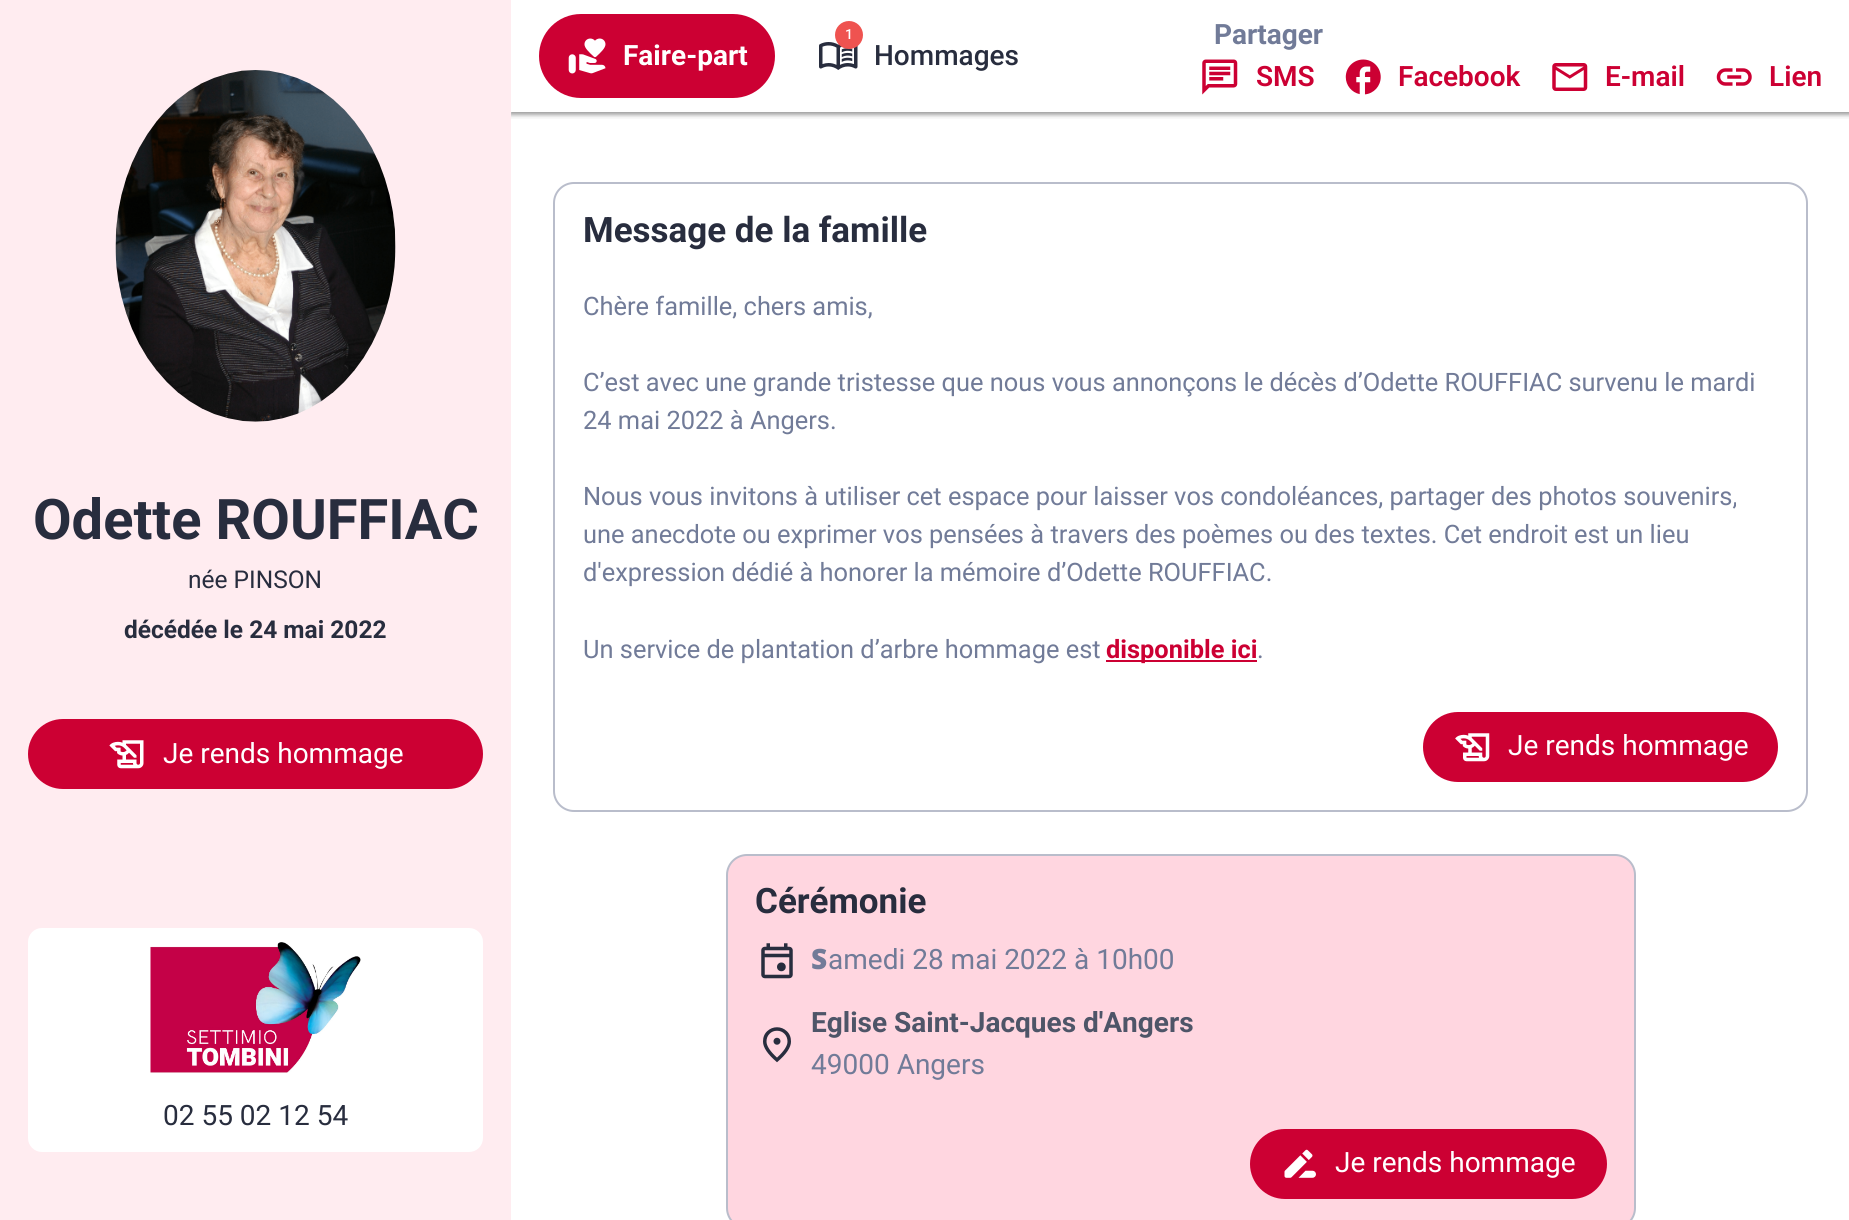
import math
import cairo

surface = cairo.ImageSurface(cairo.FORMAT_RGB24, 1849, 1220)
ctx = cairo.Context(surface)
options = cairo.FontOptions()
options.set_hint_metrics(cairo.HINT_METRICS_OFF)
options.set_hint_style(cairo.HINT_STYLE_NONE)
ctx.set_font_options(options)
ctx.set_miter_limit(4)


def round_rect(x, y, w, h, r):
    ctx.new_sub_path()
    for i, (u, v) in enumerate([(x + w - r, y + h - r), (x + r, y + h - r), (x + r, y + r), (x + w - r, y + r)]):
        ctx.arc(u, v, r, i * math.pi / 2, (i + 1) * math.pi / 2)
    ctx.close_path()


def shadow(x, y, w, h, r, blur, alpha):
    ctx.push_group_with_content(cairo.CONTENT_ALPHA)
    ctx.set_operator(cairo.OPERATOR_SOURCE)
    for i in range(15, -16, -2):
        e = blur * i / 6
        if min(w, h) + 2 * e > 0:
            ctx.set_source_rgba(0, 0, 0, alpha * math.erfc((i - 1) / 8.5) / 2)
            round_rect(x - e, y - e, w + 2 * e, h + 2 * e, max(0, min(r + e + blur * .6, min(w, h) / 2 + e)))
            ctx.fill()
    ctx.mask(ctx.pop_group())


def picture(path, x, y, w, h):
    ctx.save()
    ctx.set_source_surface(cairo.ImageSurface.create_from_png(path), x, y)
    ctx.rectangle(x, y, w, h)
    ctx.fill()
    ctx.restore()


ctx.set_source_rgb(1, 1, 1)
ctx.paint()
ctx.save()
ctx.rectangle(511, 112, 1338, 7)
ctx.clip()
ctx.set_source_rgb(0, 0, 0)
shadow(509, 0, 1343, 116, 0, 2.5, 0.15)
ctx.restore()
ctx.save()
ctx.rectangle(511, 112, 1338, 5)
ctx.clip()
ctx.set_source_rgb(0, 0, 0)
shadow(511, 2, 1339, 112, 0, 2, 0.3)
ctx.restore()
ctx.set_source_rgb(1, 0.922, 0.941)
ctx.rectangle(0, 0, 511, 1220)
ctx.fill()
picture("img1.png", 115, 70, 281, 352)
ctx.select_font_face("Roboto", cairo.FONT_SLANT_NORMAL, cairo.FONT_WEIGHT_BOLD)
ctx.set_font_size(56)
ctx.set_source_rgb(0.157, 0.176, 0.243)
ctx.move_to(33, 539)
ctx.show_text("Odette ROUFFIAC")
ctx.select_font_face("Roboto")
ctx.set_font_size(24.5)
ctx.move_to(188, 588)
ctx.show_text("née PINSON")
ctx.select_font_face("Roboto", cairo.FONT_SLANT_NORMAL, cairo.FONT_WEIGHT_BOLD)
ctx.move_to(124, 638)
ctx.show_text("décédée le 24 mai 2022")
ctx.set_source_rgb(0.8, 0, 0.2)
round_rect(29, 720, 453, 68, 34)
ctx.fill_preserve()
ctx.stroke()
picture("img2.png", 109, 740, 35, 29)
ctx.select_font_face("Roboto")
ctx.set_font_size(28)
ctx.set_source_rgb(1, 1, 1)
ctx.move_to(163, 763)
ctx.show_text("Je rends hommage")
round_rect(28, 928, 455, 224, 14)
ctx.fill()
picture("img3.png", 150, 942, 211, 131)
ctx.set_source_rgb(0.157, 0.176, 0.243)
ctx.move_to(163, 1125)
ctx.show_text("02 55 02 12 54")
ctx.set_source_rgb(0.8, 0, 0.2)
round_rect(539, 14, 236, 84, 42)
ctx.fill()
picture("img4.png", 568, 38, 38, 36)
ctx.select_font_face("Roboto", cairo.FONT_SLANT_NORMAL, cairo.FONT_WEIGHT_BOLD)
ctx.set_source_rgb(1, 1, 1)
ctx.move_to(623, 65)
ctx.show_text("Faire-part")
picture("img5.png", 819, 42, 39, 28)
ctx.set_source_rgb(0.937, 0.325, 0.314)
ctx.arc(849, 35, 14, 0, 2 * math.pi)
ctx.fill()
ctx.select_font_face("Roboto Medium")
ctx.set_font_size(14)
ctx.set_source_rgb(1, 1, 1)
ctx.move_to(845, 39)
ctx.show_text("1")
ctx.set_font_size(28)
ctx.set_source_rgb(0.157, 0.176, 0.243)
ctx.move_to(874, 65)
ctx.show_text("Hommages")
ctx.select_font_face("Roboto", cairo.FONT_SLANT_NORMAL, cairo.FONT_WEIGHT_BOLD)
ctx.set_source_rgb(0.443, 0.482, 0.596)
ctx.move_to(1214, 44)
ctx.show_text("Partager")
picture("img6.png", 1202, 59, 36, 36)
ctx.select_font_face("Roboto SemiBold")
ctx.set_source_rgb(0.8, 0, 0.2)
ctx.move_to(1256, 86)
ctx.show_text("SMS")
picture("img7.png", 1345, 59, 36, 36)
ctx.move_to(1398, 86)
ctx.show_text("Facebook")
picture("img8.png", 1552, 63, 36, 28)
ctx.move_to(1605, 86)
ctx.show_text("E-mail")
picture("img9.png", 1716, 68, 36, 18)
ctx.move_to(1769, 86)
ctx.show_text("Lien")
round_rect(554, 183, 1253, 628, 20)
ctx.set_source_rgb(0.725, 0.741, 0.796)
ctx.stroke()
ctx.select_font_face("Roboto", cairo.FONT_SLANT_NORMAL, cairo.FONT_WEIGHT_BOLD)
ctx.set_font_size(35)
ctx.set_source_rgb(0.157, 0.176, 0.243)
ctx.move_to(583, 242)
ctx.show_text("Message de la famille")
ctx.select_font_face("Roboto")
ctx.set_font_size(25.4)
ctx.set_source_rgb(0.443, 0.482, 0.596)
ctx.move_to(583, 315)
ctx.show_text("Chère famille, chers amis,")
ctx.move_to(583, 391)
ctx.show_text("C’est avec une grande tristesse que nous vous annonçons le décès d’Odette ROUFFIAC survenu le mardi")
ctx.move_to(583, 429)
ctx.show_text("24 mai 2022 à Angers.")
ctx.move_to(583, 505)
ctx.show_text("Nous vous invitons à utiliser cet espace pour laisser vos condoléances, partager des photos souvenirs,")
ctx.move_to(583, 543)
ctx.show_text("une anecdote ou exprimer vos pensées à travers des poèmes ou des textes. Cet endroit est un lieu")
ctx.move_to(583, 581)
ctx.show_text("d'expression dédié à honorer la mémoire d’Odette ROUFFIAC.")
ctx.move_to(583, 658)
ctx.show_text("Un service de plantation d’arbre hommage est")
ctx.set_source_rgb(0.8, 0, 0.2)
ctx.rectangle(1106, 660, 151, 2)
ctx.fill()
ctx.select_font_face("Roboto", cairo.FONT_SLANT_NORMAL, cairo.FONT_WEIGHT_BOLD)
ctx.move_to(1106, 658)
ctx.show_text("disponible ici")
ctx.select_font_face("Roboto")
ctx.set_source_rgb(0.443, 0.482, 0.596)
ctx.move_to(1257, 658)
ctx.show_text(".")
ctx.set_source_rgb(0.8, 0, 0.2)
round_rect(1424, 713, 353, 68, 34)
ctx.fill_preserve()
ctx.stroke()
picture("img10.png", 1455, 733, 35, 29)
ctx.set_font_size(28)
ctx.set_source_rgb(1, 1, 1)
ctx.move_to(1508, 755)
ctx.show_text("Je rends hommage")
ctx.set_source_rgb(1, 0.839, 0.878)
round_rect(727, 855, 908, 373, 20)
ctx.fill_preserve()
ctx.set_source_rgb(0.725, 0.741, 0.796)
ctx.stroke()
ctx.select_font_face("Roboto", cairo.FONT_SLANT_NORMAL, cairo.FONT_WEIGHT_BOLD)
ctx.set_font_size(35)
ctx.set_source_rgb(0.157, 0.176, 0.243)
ctx.move_to(755, 913)
ctx.show_text("Cérémonie")
picture("img11.png", 761, 943, 32, 36)
ctx.select_font_face("Noto Sans Black")
ctx.set_font_size(28)
ctx.set_source_rgb(0.443, 0.482, 0.596)
ctx.move_to(811, 969)
ctx.show_text("S")
ctx.select_font_face("Roboto")
ctx.move_to(828, 969)
ctx.show_text("amedi 28 mai 2022 à 10h00")
picture("img12.png", 763, 1027, 28, 36)
ctx.select_font_face("Roboto", cairo.FONT_SLANT_NORMAL, cairo.FONT_WEIGHT_BOLD)
ctx.set_source_rgb(0.306, 0.333, 0.408)
ctx.move_to(811, 1032)
ctx.show_text("Eglise Saint-Jacques d'Angers")
ctx.select_font_face("Roboto")
ctx.set_source_rgb(0.443, 0.482, 0.596)
ctx.move_to(811, 1074)
ctx.show_text("49000 Angers")
ctx.set_source_rgb(0.8, 0, 0.2)
round_rect(1251, 1130, 355, 68, 34)
ctx.fill_preserve()
ctx.stroke()
picture("img13.png", 1284, 1149, 32, 29)
ctx.set_source_rgb(1, 1, 1)
ctx.move_to(1335, 1172)
ctx.show_text("Je rends hommage")
surface.write_to_png("page.png")
